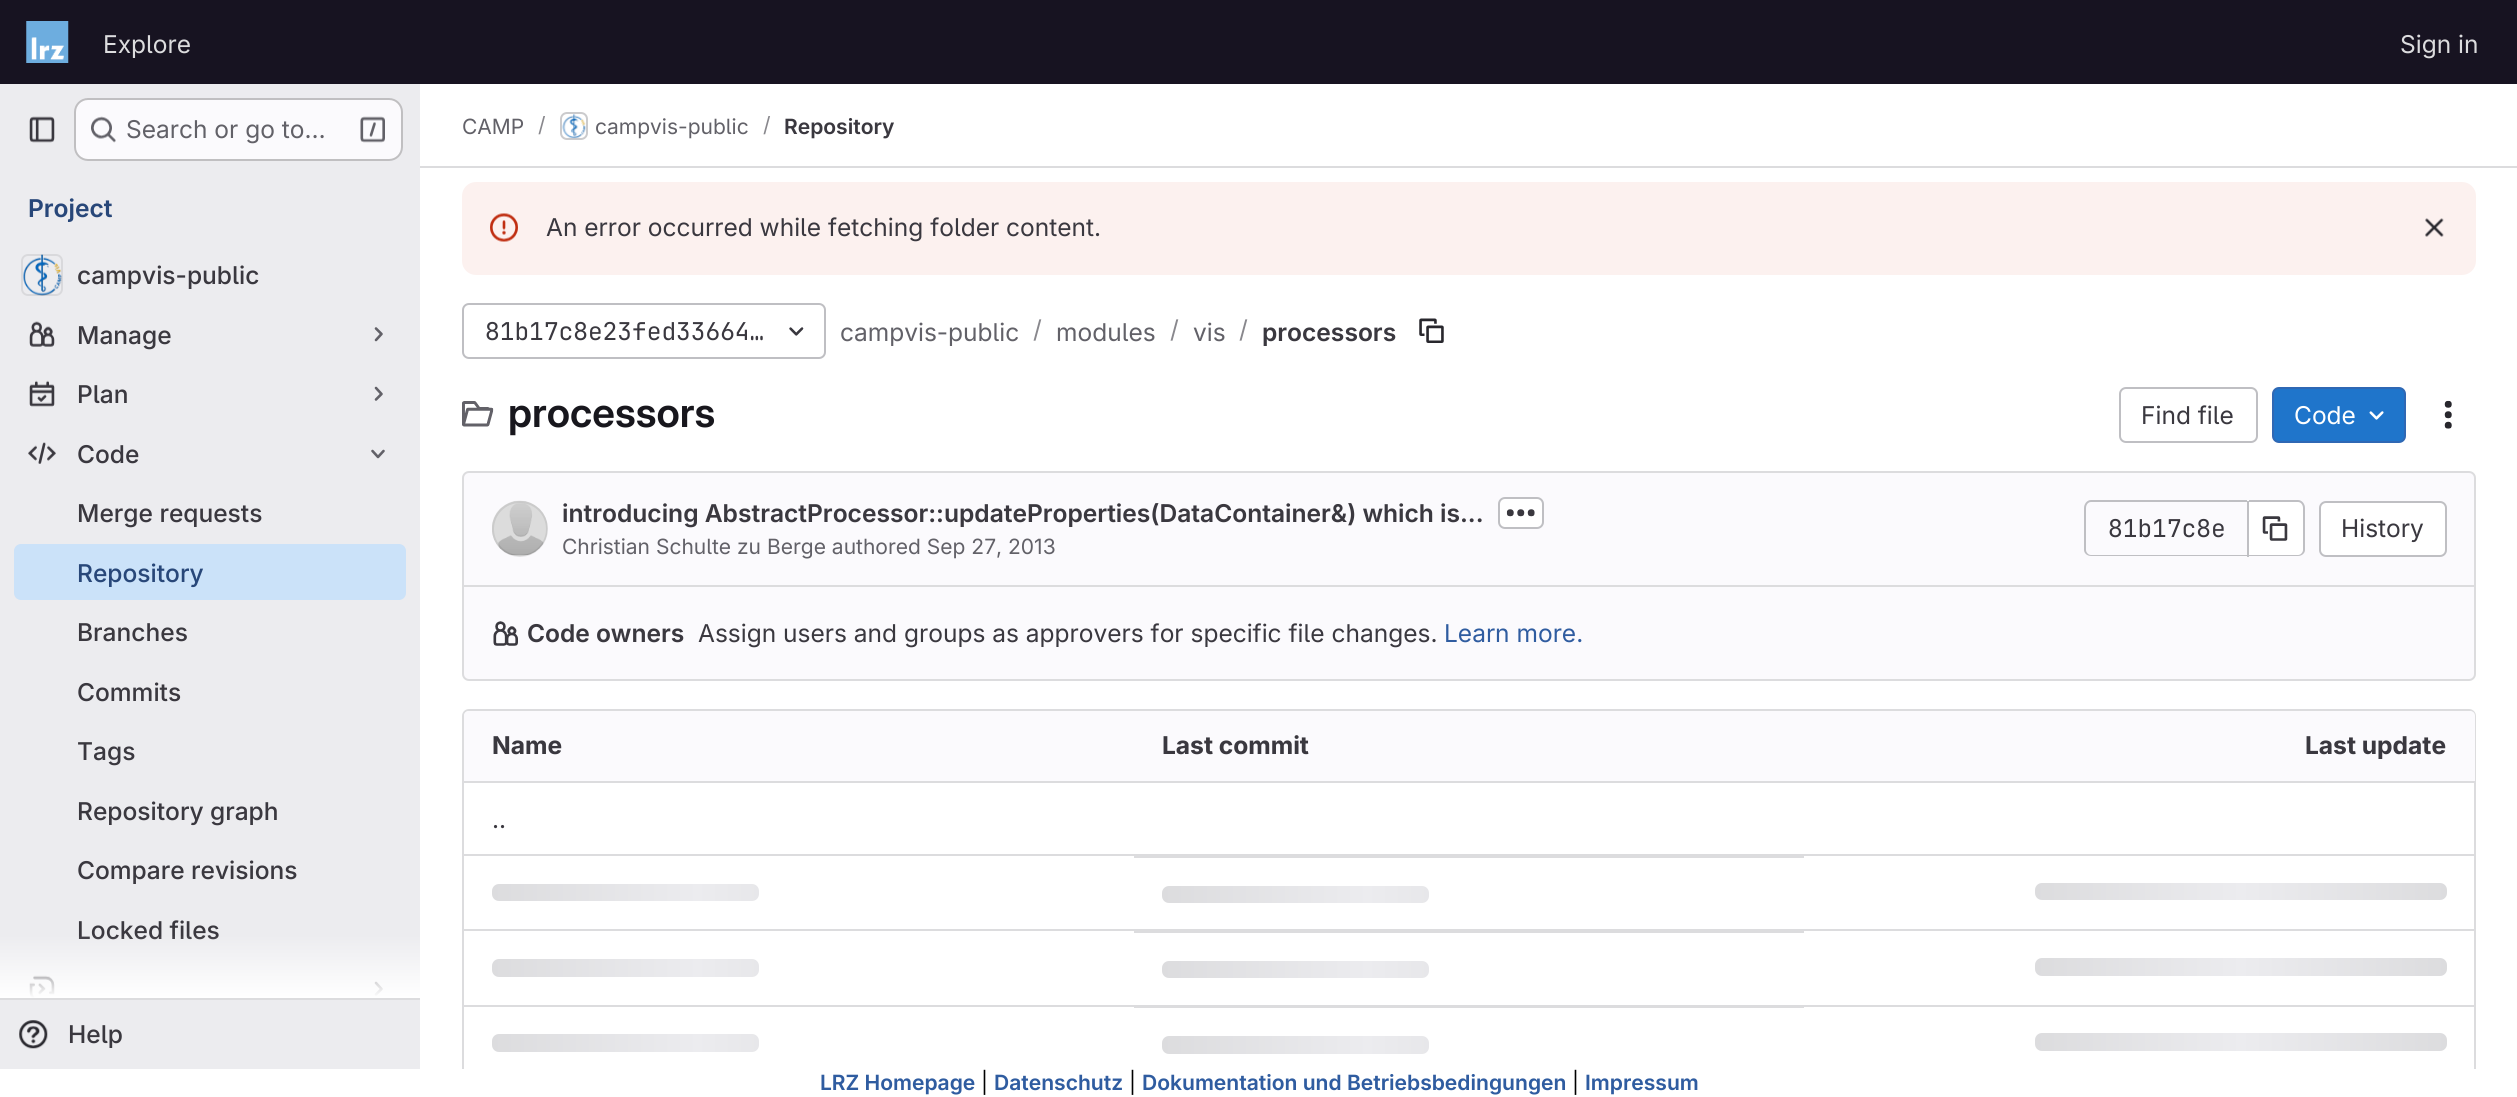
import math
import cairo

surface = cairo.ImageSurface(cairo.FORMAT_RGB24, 2517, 1097)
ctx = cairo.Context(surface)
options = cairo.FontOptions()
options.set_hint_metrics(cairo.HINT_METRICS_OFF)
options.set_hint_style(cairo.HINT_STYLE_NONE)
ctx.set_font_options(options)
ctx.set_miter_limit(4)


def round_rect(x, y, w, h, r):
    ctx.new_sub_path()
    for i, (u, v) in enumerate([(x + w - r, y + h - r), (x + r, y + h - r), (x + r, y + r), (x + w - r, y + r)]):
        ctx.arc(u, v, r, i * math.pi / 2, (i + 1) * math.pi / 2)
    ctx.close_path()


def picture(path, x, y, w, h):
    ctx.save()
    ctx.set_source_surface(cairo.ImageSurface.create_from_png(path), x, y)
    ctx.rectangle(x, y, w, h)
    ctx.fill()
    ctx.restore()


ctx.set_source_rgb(1, 1, 1)
ctx.paint()
ctx.set_source_rgb(0.09, 0.075, 0.129)
ctx.rectangle(0, 0, 2517, 84)
ctx.fill()
picture("img1.png", 26, 21, 43, 42)
ctx.select_font_face("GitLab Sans")
ctx.set_font_size(24.5)
ctx.set_source_rgb(0.863, 0.863, 0.871)
ctx.move_to(103, 53)
ctx.show_text("Explore")
ctx.move_to(2400, 53)
ctx.show_text("Sign in")
ctx.set_source_rgb(0.925, 0.925, 0.937)
ctx.rectangle(0, 84, 420, 985)
ctx.fill()
picture("img2.png", 29, 116, 26, 27)
ctx.set_source_rgb(0.984, 0.98, 0.992)
round_rect(74, 98, 329, 63, 14)
ctx.fill()
round_rect(75, 99, 327, 61, 13)
ctx.set_source_rgba(0.02, 0.02, 0.024, 0.24)
ctx.stroke()
picture("img3.png", 91, 116, 25, 27)
ctx.set_source_rgb(0.384, 0.38, 0.408)
ctx.move_to(126, 138)
ctx.show_text("Search or go to…")
picture("img4.png", 360, 116, 25, 27)
ctx.select_font_face("GitLab Sans SemiBold")
ctx.set_source_rgb(0.157, 0.278, 0.475)
ctx.move_to(28, 217)
ctx.show_text("Project")
ctx.set_source_rgb(0.863, 0.863, 0.871)
ctx.rectangle(0, 998, 420, 2)
ctx.fill()
picture("img5.png", 23, 254, 39, 42)
round_rect(22, 255, 40, 40, 6)
ctx.set_source_rgba(0.02, 0.02, 0.024, 0.08)
ctx.stroke()
ctx.select_font_face("GitLab Sans Medium")
ctx.set_source_rgb(0.227, 0.22, 0.247)
ctx.move_to(77, 284)
ctx.show_text("campvis-public")
picture("img6.png", 29, 321, 26, 26)
ctx.move_to(77, 344)
ctx.show_text("Manage")
ctx.new_path()
ctx.move_to(376, 328.5)
ctx.line_to(381.5, 334)
ctx.line_to(376, 340)
ctx.set_source_rgb(0.384, 0.38, 0.408)
ctx.set_line_width(2.6)
ctx.set_line_cap(cairo.LINE_CAP_ROUND)
ctx.set_line_join(cairo.LINE_JOIN_ROUND)
ctx.stroke()
picture("img7.png", 29, 380, 26, 27)
ctx.set_source_rgb(0.227, 0.22, 0.247)
ctx.move_to(77, 403)
ctx.show_text("Plan")
ctx.new_path()
ctx.move_to(376, 388)
ctx.line_to(381.5, 394)
ctx.line_to(376, 399.5)
ctx.set_source_rgb(0.384, 0.38, 0.408)
ctx.stroke()
picture("img8.png", 28, 442, 28, 22)
ctx.set_source_rgb(0.227, 0.22, 0.247)
ctx.move_to(77, 463)
ctx.show_text("Code")
ctx.new_path()
ctx.move_to(383.5, 451)
ctx.line_to(378, 457)
ctx.line_to(372.5, 451)
ctx.set_source_rgb(0.384, 0.38, 0.408)
ctx.stroke()
ctx.set_source_rgb(0.227, 0.22, 0.247)
ctx.move_to(77, 522)
ctx.show_text("Merge requests")
ctx.set_source_rgb(0.796, 0.886, 0.976)
round_rect(14, 544, 392, 56, 7)
ctx.fill()
ctx.set_source_rgb(0.157, 0.278, 0.475)
ctx.move_to(77, 582)
ctx.show_text("Repository")
ctx.set_source_rgb(0.227, 0.22, 0.247)
ctx.move_to(77, 641)
ctx.show_text("Branches")
ctx.move_to(77, 701)
ctx.show_text("Commits")
ctx.move_to(77, 760)
ctx.show_text("Tags")
ctx.move_to(77, 820)
ctx.show_text("Repository graph")
ctx.move_to(77, 879)
ctx.show_text("Compare revisions")
ctx.move_to(77, 939)
ctx.show_text("Locked files")
picture("img9.png", 29, 975, 26, 23)
ctx.new_path()
ctx.move_to(376, 983)
ctx.line_to(381.5, 989)
ctx.line_to(376, 994.5)
ctx.set_source_rgb(0.384, 0.38, 0.408)
ctx.stroke()
gradient = cairo.LinearGradient(210, 935, 210, 998)
gradient.add_color_stop_rgba(0, 1, 1, 1, 0)
gradient.add_color_stop_rgba(1, 1, 1, 1, 1)
ctx.set_source(gradient)
ctx.rectangle(0, 936, 420, 62)
ctx.fill()
picture("img10.png", 19, 1020, 29, 29)
ctx.set_source_rgb(0.227, 0.22, 0.247)
ctx.move_to(68, 1043)
ctx.show_text("Help")
ctx.set_source_rgb(0.863, 0.863, 0.871)
ctx.rectangle(420, 166, 2097, 2)
ctx.fill()
ctx.select_font_face("GitLab Sans")
ctx.set_font_size(21)
ctx.set_source_rgb(0.384, 0.38, 0.408)
ctx.move_to(462, 134)
ctx.show_text("CAMP")
ctx.set_source_rgb(0.537, 0.533, 0.553)
ctx.move_to(538, 132)
ctx.show_text("/")
round_rect(561, 113, 26, 26, 6)
ctx.set_source_rgb(0.863, 0.863, 0.871)
ctx.set_line_width(2)
ctx.set_line_cap(cairo.LINE_CAP_BUTT)
ctx.set_line_join(cairo.LINE_JOIN_MITER)
ctx.stroke()
picture("img11.png", 562, 114, 24, 25)
round_rect(561, 113, 26, 26, 6)
ctx.set_source_rgba(0.02, 0.02, 0.024, 0.08)
ctx.stroke()
ctx.set_source_rgb(0.384, 0.38, 0.408)
ctx.move_to(595, 134)
ctx.show_text("campvis-public")
ctx.set_source_rgb(0.537, 0.533, 0.553)
ctx.move_to(763, 132)
ctx.show_text("/")
ctx.select_font_face("GitLab Sans SemiBold")
ctx.set_source_rgb(0.227, 0.22, 0.247)
ctx.move_to(784, 134)
ctx.show_text("Repository")
ctx.set_source_rgb(0.988, 0.945, 0.937)
round_rect(462, 182, 2014, 93, 14)
ctx.fill()
picture("img12.png", 490, 213, 28, 29)
ctx.select_font_face("GitLab Sans")
ctx.set_font_size(24.5)
ctx.set_source_rgb(0.227, 0.22, 0.247)
ctx.move_to(546, 236)
ctx.show_text("An error occurred while fetching folder content.")
picture("img13.png", 2425, 218, 19, 19)
round_rect(463, 304, 362, 54, 6)
ctx.set_source_rgb(0.749, 0.749, 0.765)
ctx.stroke()
ctx.select_font_face("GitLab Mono")
ctx.set_source_rgb(0.227, 0.22, 0.247)
ctx.move_to(485, 340)
ctx.show_text("81b17c8e23fed33664…")
picture("img14.png", 789, 327, 15, 9)
ctx.select_font_face("GitLab Sans")
ctx.set_source_rgb(0.384, 0.38, 0.408)
ctx.move_to(840, 341)
ctx.show_text("campvis-public")
ctx.set_source_rgb(0.537, 0.533, 0.553)
ctx.move_to(1033, 338)
ctx.show_text("/")
ctx.set_source_rgb(0.384, 0.38, 0.408)
ctx.move_to(1056, 341)
ctx.show_text("modules")
ctx.set_source_rgb(0.537, 0.533, 0.553)
ctx.move_to(1170, 338)
ctx.show_text("/")
ctx.set_source_rgb(0.384, 0.38, 0.408)
ctx.move_to(1193, 341)
ctx.show_text("vis")
ctx.set_source_rgb(0.537, 0.533, 0.553)
ctx.move_to(1239, 338)
ctx.show_text("/")
ctx.select_font_face("GitLab Sans SemiBold")
ctx.set_source_rgb(0.227, 0.22, 0.247)
ctx.move_to(1262, 341)
ctx.show_text("processors")
picture("img15.png", 1419, 318, 25, 25)
picture("img16.png", 462, 401, 32, 26)
ctx.select_font_face("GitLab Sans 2 SemiBold")
ctx.set_font_size(40.25)
ctx.set_source_rgb(0.094, 0.09, 0.114)
ctx.move_to(508, 427)
ctx.show_text("processors")
round_rect(2120, 388, 137, 54, 6)
ctx.set_source_rgb(0.749, 0.749, 0.765)
ctx.stroke()
ctx.select_font_face("GitLab Sans")
ctx.set_font_size(24.5)
ctx.set_source_rgb(0.227, 0.22, 0.247)
ctx.move_to(2141, 424)
ctx.show_text("Find file")
ctx.set_source_rgb(0.122, 0.459, 0.796)
round_rect(2273, 388, 132, 54, 6)
ctx.fill_preserve()
ctx.set_source_rgb(0.184, 0.408, 0.706)
ctx.stroke()
ctx.set_source_rgb(1, 1, 1)
ctx.move_to(2294, 424)
ctx.show_text("Code")
picture("img17.png", 2369, 411, 15, 9)
picture("img18.png", 2444, 400, 8, 29)
ctx.set_source_rgb(0.984, 0.98, 0.992)
round_rect(463, 472, 2012, 208, 6)
ctx.fill_preserve()
ctx.set_source_rgb(0.863, 0.863, 0.871)
ctx.stroke()
picture("img19.png", 492, 500, 56, 57)
ctx.arc(520, 529, 27, 0, 2 * math.pi)
ctx.set_source_rgba(0.02, 0.02, 0.024, 0.08)
ctx.stroke()
ctx.select_font_face("GitLab Sans SemiBold")
ctx.set_source_rgb(0.227, 0.22, 0.247)
ctx.move_to(562, 522)
ctx.show_text("introducing AbstractProcessor::updateProperties(DataContainer&) which is...")
ctx.set_source_rgb(1, 1, 1)
round_rect(1499, 498, 44, 30, 6)
ctx.fill_preserve()
ctx.set_source_rgb(0.749, 0.749, 0.765)
ctx.stroke()
picture("img20.png", 1506, 509, 29, 8)
ctx.select_font_face("GitLab Sans")
ctx.set_font_size(21)
ctx.set_source_rgb(0.384, 0.38, 0.408)
ctx.move_to(562, 554)
ctx.show_text("Christian Schulte zu Berge authored Sep 27, 2013")
ctx.set_source_rgb(0.749, 0.749, 0.765)
ctx.set_fill_rule(cairo.FILL_RULE_EVEN_ODD)
ctx.new_path()
ctx.move_to(2091, 500)
ctx.line_to(2247, 500)
ctx.line_to(2247, 556)
ctx.line_to(2091, 556)
ctx.curve_to(2087, 556, 2084, 553, 2084, 550)
ctx.line_to(2084, 508)
ctx.curve_to(2084, 504, 2087, 500, 2091, 500)
ctx.close_path()
ctx.move_to(2091, 502)
ctx.line_to(2247, 502)
ctx.line_to(2247, 555)
ctx.line_to(2091, 555)
ctx.curve_to(2088, 555, 2086, 552, 2086, 550)
ctx.line_to(2086, 508)
ctx.curve_to(2086, 505, 2088, 502, 2091, 502)
ctx.close_path()
ctx.fill()
ctx.select_font_face("GitLab Mono")
ctx.set_font_size(24.5)
ctx.set_source_rgb(0.227, 0.22, 0.247)
ctx.move_to(2108, 537)
ctx.show_text("81b17c8e")
ctx.set_source_rgb(1, 1, 1)
ctx.new_path()
ctx.move_to(2249, 502)
ctx.line_to(2298, 502)
ctx.curve_to(2301, 502, 2303, 504, 2303, 507)
ctx.line_to(2303, 550)
ctx.curve_to(2303, 553, 2301, 555, 2298, 555)
ctx.line_to(2249, 555)
ctx.close_path()
ctx.fill()
ctx.set_source_rgb(0.749, 0.749, 0.765)
ctx.new_path()
ctx.move_to(2249, 500)
ctx.line_to(2298, 500)
ctx.curve_to(2302, 500, 2305, 504, 2305, 508)
ctx.line_to(2305, 550)
ctx.curve_to(2305, 553, 2302, 556, 2298, 556)
ctx.line_to(2249, 556)
ctx.close_path()
ctx.move_to(2249, 502)
ctx.line_to(2298, 502)
ctx.curve_to(2301, 502, 2303, 505, 2303, 508)
ctx.line_to(2303, 550)
ctx.curve_to(2303, 552, 2301, 555, 2298, 555)
ctx.line_to(2249, 555)
ctx.close_path()
ctx.fill()
ctx.rectangle(2247, 501, 2, 56)
ctx.fill()
picture("img21.png", 2262, 516, 26, 25)
ctx.set_source_rgb(1, 1, 1)
round_rect(2320, 502, 126, 54, 6)
ctx.fill_preserve()
ctx.set_source_rgb(0.749, 0.749, 0.765)
ctx.stroke()
ctx.select_font_face("GitLab Sans")
ctx.set_source_rgb(0.227, 0.22, 0.247)
ctx.move_to(2341, 537)
ctx.show_text("History")
ctx.set_source_rgb(0.863, 0.863, 0.871)
ctx.rectangle(464, 585, 2011, 2)
ctx.fill()
picture("img22.png", 493, 621, 25, 25)
ctx.select_font_face("GitLab Sans SemiBold")
ctx.set_source_rgb(0.227, 0.22, 0.247)
ctx.move_to(527, 642)
ctx.show_text("Code owners")
ctx.select_font_face("GitLab Sans")
ctx.move_to(698, 642)
ctx.show_text("Assign users and groups as approvers for specific file changes.")
ctx.set_source_rgb(0.184, 0.361, 0.627)
ctx.move_to(1444, 642)
ctx.show_text("Learn more.")
round_rect(463, 710, 2012, 371, 6)
ctx.set_source_rgb(0.863, 0.863, 0.871)
ctx.stroke()
ctx.set_source_rgb(0.984, 0.98, 0.992)
ctx.new_path()
ctx.move_to(469, 711)
ctx.line_to(1134, 711)
ctx.line_to(1134, 782)
ctx.line_to(464, 782)
ctx.line_to(464, 716)
ctx.curve_to(464, 713, 466, 711, 469, 711)
ctx.close_path()
ctx.fill()
ctx.select_font_face("GitLab Sans", cairo.FONT_SLANT_NORMAL, cairo.FONT_WEIGHT_BOLD)
ctx.set_source_rgb(0.227, 0.22, 0.247)
ctx.move_to(492, 754)
ctx.show_text("Name")
ctx.set_source_rgb(0.984, 0.98, 0.992)
ctx.rectangle(1134, 711, 670, 70)
ctx.fill()
ctx.set_source_rgb(0.227, 0.22, 0.247)
ctx.move_to(1162, 754)
ctx.show_text("Last commit")
ctx.set_source_rgb(0.984, 0.98, 0.992)
ctx.new_path()
ctx.move_to(1804, 711)
ctx.line_to(2470, 711)
ctx.curve_to(2473, 711, 2475, 713, 2475, 716)
ctx.line_to(2475, 782)
ctx.line_to(1804, 782)
ctx.close_path()
ctx.fill()
ctx.set_source_rgb(0.227, 0.22, 0.247)
ctx.move_to(2305, 754)
ctx.show_text("Last update")
ctx.set_source_rgb(0.863, 0.863, 0.871)
ctx.rectangle(464, 854, 2011, 2)
ctx.fill()
ctx.rectangle(464, 781, 2011, 2)
ctx.fill()
ctx.select_font_face("GitLab Sans")
ctx.set_source_rgb(0.227, 0.22, 0.247)
ctx.move_to(492, 828)
ctx.show_text("..")
ctx.set_source_rgb(0.863, 0.863, 0.871)
ctx.rectangle(464, 929, 2011, 2)
ctx.fill()
gradient = cairo.LinearGradient(492, 884, 903, 884)
gradient.add_color_stop_rgba(0, 0.863, 0.863, 0.871, 1)
gradient.add_color_stop_rgba(0.5, 0.925, 0.925, 0.937, 1)
gradient.add_color_stop_rgba(1, 0.863, 0.863, 0.871, 1)
ctx.set_source(gradient)
round_rect(492, 884, 267, 17, 7)
ctx.fill()
ctx.set_source_rgb(0.863, 0.863, 0.871)
ctx.rectangle(1134, 856, 670, 2)
ctx.fill()
gradient = cairo.LinearGradient(1162, 886, 1573, 886)
gradient.add_color_stop_rgba(0, 0.863, 0.863, 0.871, 1)
gradient.add_color_stop_rgba(0.5, 0.925, 0.925, 0.937, 1)
gradient.add_color_stop_rgba(1, 0.863, 0.863, 0.871, 1)
ctx.set_source(gradient)
round_rect(1162, 886, 267, 17, 7)
ctx.fill()
gradient = cairo.LinearGradient(2035, 883, 2447, 883)
gradient.add_color_stop_rgba(0, 0.863, 0.863, 0.871, 1)
gradient.add_color_stop_rgba(0.5, 0.925, 0.925, 0.937, 1)
gradient.add_color_stop_rgba(1, 0.863, 0.863, 0.871, 1)
ctx.set_source(gradient)
round_rect(2035, 883, 412, 17, 7)
ctx.fill()
ctx.set_source_rgb(0.863, 0.863, 0.871)
ctx.rectangle(464, 1005, 2011, 2)
ctx.fill()
gradient = cairo.LinearGradient(492, 959, 903, 959)
gradient.add_color_stop_rgba(0, 0.863, 0.863, 0.871, 1)
gradient.add_color_stop_rgba(0.5, 0.925, 0.925, 0.937, 1)
gradient.add_color_stop_rgba(1, 0.863, 0.863, 0.871, 1)
ctx.set_source(gradient)
round_rect(492, 959, 267, 18, 7)
ctx.fill()
ctx.set_source_rgb(0.863, 0.863, 0.871)
ctx.rectangle(1134, 931, 670, 2)
ctx.fill()
gradient = cairo.LinearGradient(1162, 961, 1573, 961)
gradient.add_color_stop_rgba(0, 0.863, 0.863, 0.871, 1)
gradient.add_color_stop_rgba(0.5, 0.925, 0.925, 0.937, 1)
gradient.add_color_stop_rgba(1, 0.863, 0.863, 0.871, 1)
ctx.set_source(gradient)
round_rect(1162, 961, 267, 17, 7)
ctx.fill()
gradient = cairo.LinearGradient(2035, 958, 2447, 958)
gradient.add_color_stop_rgba(0, 0.863, 0.863, 0.871, 1)
gradient.add_color_stop_rgba(0.5, 0.925, 0.925, 0.937, 1)
gradient.add_color_stop_rgba(1, 0.863, 0.863, 0.871, 1)
ctx.set_source(gradient)
round_rect(2035, 958, 412, 18, 7)
ctx.fill()
gradient = cairo.LinearGradient(492, 1034, 903, 1034)
gradient.add_color_stop_rgba(0, 0.863, 0.863, 0.871, 1)
gradient.add_color_stop_rgba(0.5, 0.925, 0.925, 0.937, 1)
gradient.add_color_stop_rgba(1, 0.863, 0.863, 0.871, 1)
ctx.set_source(gradient)
round_rect(492, 1034, 267, 18, 7)
ctx.fill()
ctx.set_source_rgb(0.863, 0.863, 0.871)
ctx.rectangle(1134, 1007, 670, 1)
ctx.fill()
gradient = cairo.LinearGradient(1162, 1036, 1573, 1036)
gradient.add_color_stop_rgba(0, 0.863, 0.863, 0.871, 1)
gradient.add_color_stop_rgba(0.5, 0.925, 0.925, 0.937, 1)
gradient.add_color_stop_rgba(1, 0.863, 0.863, 0.871, 1)
ctx.set_source(gradient)
round_rect(1162, 1036, 267, 18, 7)
ctx.fill()
gradient = cairo.LinearGradient(2035, 1033, 2447, 1033)
gradient.add_color_stop_rgba(0, 0.863, 0.863, 0.871, 1)
gradient.add_color_stop_rgba(0.5, 0.925, 0.925, 0.937, 1)
gradient.add_color_stop_rgba(1, 0.863, 0.863, 0.871, 1)
ctx.set_source(gradient)
round_rect(2035, 1033, 412, 18, 7)
ctx.fill()
ctx.set_source_rgb(1, 1, 1)
ctx.rectangle(462, 1069, 2014, 13)
ctx.fill()
ctx.select_font_face("GitLab Sans SemiBold")
ctx.set_font_size(21)
ctx.set_source_rgb(0.184, 0.361, 0.627)
ctx.move_to(820, 1090)
ctx.show_text("LRZ Homepage")
ctx.select_font_face("GitLab Sans")
ctx.set_source_rgb(0, 0, 0)
ctx.move_to(981, 1090)
ctx.show_text("|")
ctx.select_font_face("GitLab Sans SemiBold")
ctx.set_source_rgb(0.184, 0.361, 0.627)
ctx.move_to(994, 1090)
ctx.show_text("Datenschutz")
ctx.select_font_face("GitLab Sans")
ctx.set_source_rgb(0, 0, 0)
ctx.move_to(1129, 1090)
ctx.show_text("|")
ctx.select_font_face("GitLab Sans SemiBold")
ctx.set_source_rgb(0.184, 0.361, 0.627)
ctx.move_to(1142, 1090)
ctx.show_text("Dokumentation und Betriebsbedingungen")
ctx.select_font_face("GitLab Sans")
ctx.set_source_rgb(0, 0, 0)
ctx.move_to(1572, 1090)
ctx.show_text("|")
ctx.select_font_face("GitLab Sans SemiBold")
ctx.set_source_rgb(0.184, 0.361, 0.627)
ctx.move_to(1585, 1090)
ctx.show_text("Impressum")
surface.write_to_png("page.png")
